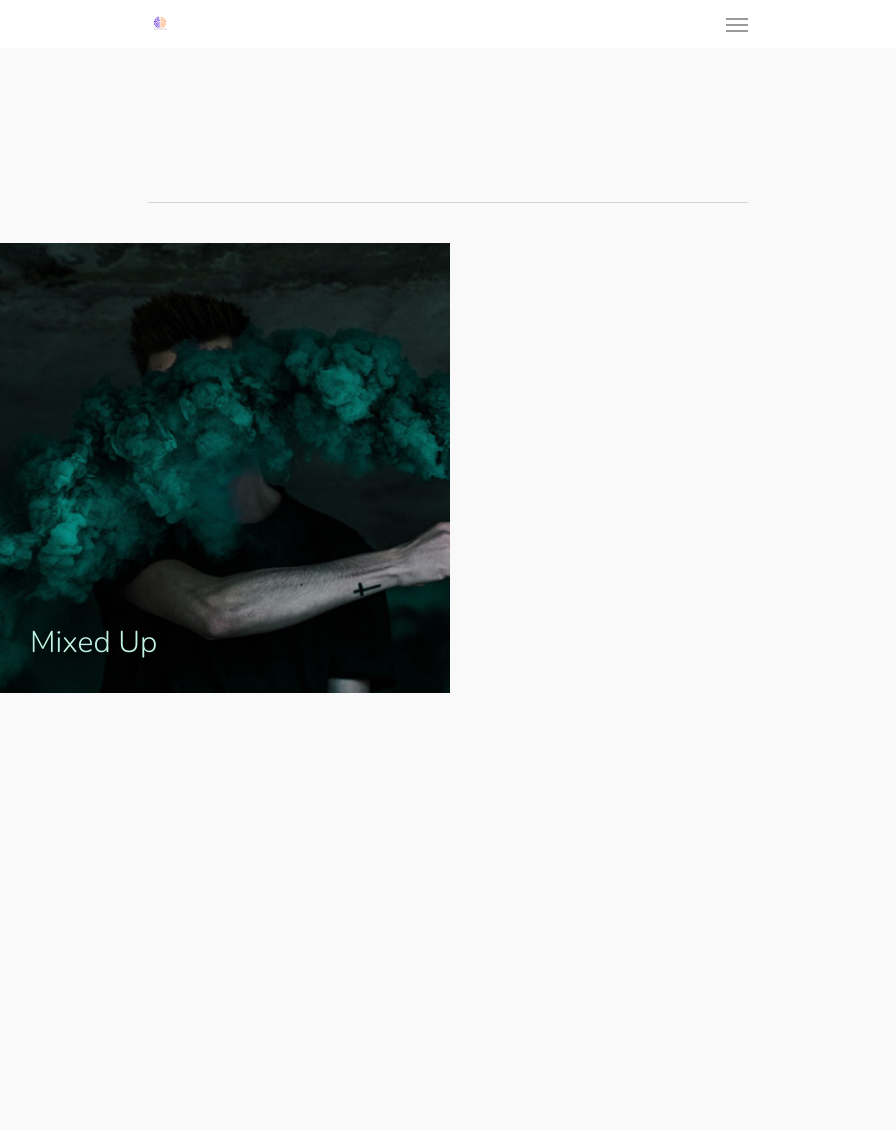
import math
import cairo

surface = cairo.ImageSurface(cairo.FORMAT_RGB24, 896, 1130)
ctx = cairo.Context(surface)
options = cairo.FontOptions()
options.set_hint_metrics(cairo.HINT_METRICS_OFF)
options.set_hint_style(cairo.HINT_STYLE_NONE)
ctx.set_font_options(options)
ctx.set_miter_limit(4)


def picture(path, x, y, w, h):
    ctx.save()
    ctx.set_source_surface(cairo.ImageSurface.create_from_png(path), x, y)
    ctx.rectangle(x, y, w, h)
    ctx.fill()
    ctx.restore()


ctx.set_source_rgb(0.976, 0.976, 0.976)
ctx.paint()
ctx.set_source_rgb(1, 1, 1)
ctx.rectangle(0, 0, 896, 48)
ctx.fill()
picture("img1.png", 153, 16, 14, 14)
ctx.set_source_rgb(0.6, 0.6, 0.6)
ctx.rectangle(726, 18, 22, 2)
ctx.fill()
ctx.rectangle(726, 30, 22, 2)
ctx.fill()
ctx.rectangle(726, 24, 22, 2)
ctx.fill()
ctx.set_source_rgb(0.831, 0.831, 0.831)
ctx.rectangle(148, 202, 600, 1)
ctx.fill()
picture("img2.png", 0, 243, 450, 450)
ctx.select_font_face("Nunito Light")
ctx.set_font_size(30)
ctx.set_source_rgb(0.753, 0.957, 0.878)
ctx.move_to(30, 652)
ctx.show_text("Mixed Up")
surface.write_to_png("page.png")
